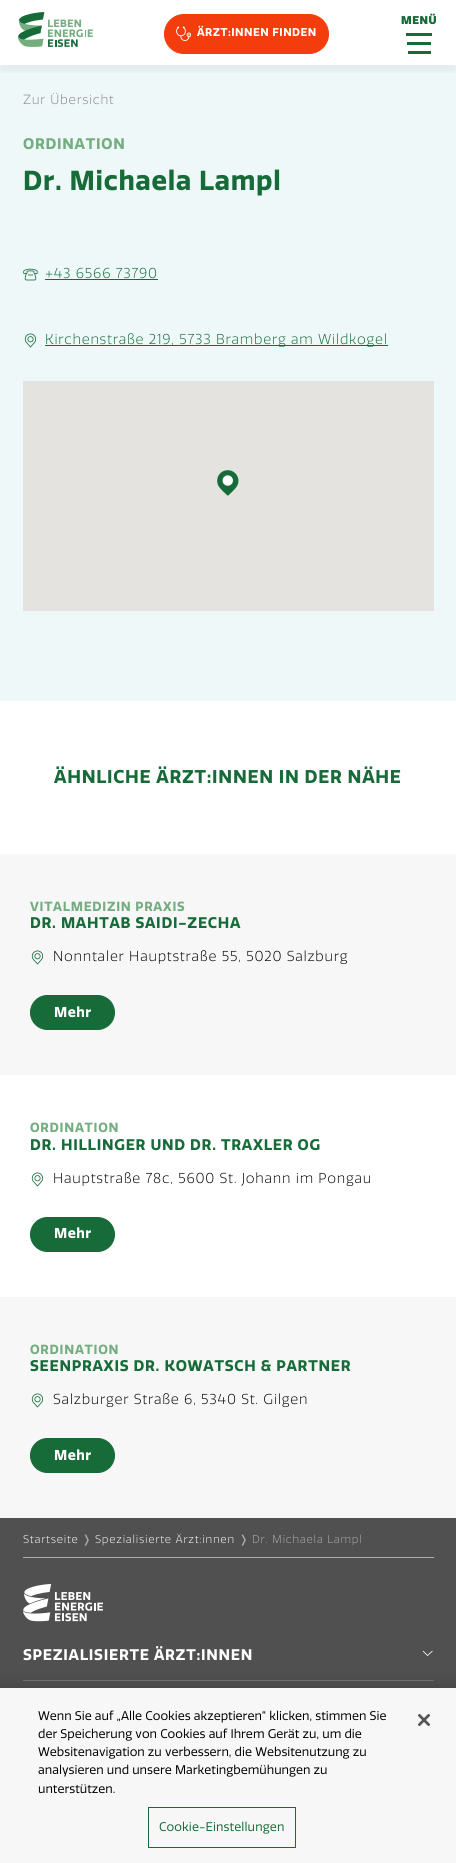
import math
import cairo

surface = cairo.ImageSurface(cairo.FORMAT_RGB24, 456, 1863)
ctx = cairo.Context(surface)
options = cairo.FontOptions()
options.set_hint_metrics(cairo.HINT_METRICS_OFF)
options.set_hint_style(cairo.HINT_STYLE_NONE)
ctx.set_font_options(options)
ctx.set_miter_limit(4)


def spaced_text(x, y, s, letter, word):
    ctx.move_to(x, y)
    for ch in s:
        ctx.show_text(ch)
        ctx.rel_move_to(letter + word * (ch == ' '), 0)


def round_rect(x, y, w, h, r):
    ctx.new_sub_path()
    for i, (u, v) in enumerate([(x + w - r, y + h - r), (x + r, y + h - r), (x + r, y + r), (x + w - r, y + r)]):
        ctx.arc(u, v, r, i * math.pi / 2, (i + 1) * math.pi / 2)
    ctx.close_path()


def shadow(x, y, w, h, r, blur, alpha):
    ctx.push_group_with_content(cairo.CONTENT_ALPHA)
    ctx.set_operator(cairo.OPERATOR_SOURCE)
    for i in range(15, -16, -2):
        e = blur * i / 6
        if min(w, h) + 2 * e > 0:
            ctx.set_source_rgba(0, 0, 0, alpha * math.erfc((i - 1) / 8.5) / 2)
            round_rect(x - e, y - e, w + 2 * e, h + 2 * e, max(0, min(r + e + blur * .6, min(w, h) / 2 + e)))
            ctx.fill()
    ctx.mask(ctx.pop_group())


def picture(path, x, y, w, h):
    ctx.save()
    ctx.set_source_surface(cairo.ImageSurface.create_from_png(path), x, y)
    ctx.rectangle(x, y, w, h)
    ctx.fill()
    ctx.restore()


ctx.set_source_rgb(1, 1, 1)
ctx.paint()
ctx.set_source_rgb(0.933, 0.969, 0.976)
ctx.rectangle(0, 65, 456, 636)
ctx.fill()
ctx.save()
ctx.rectangle(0, 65, 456, 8)
ctx.clip()
ctx.set_source_rgb(0, 0, 0)
shadow(0, 7, 456, 65, 0, 4, 0.05)
ctx.restore()
picture("img1.png", 18, 12, 75, 35)
ctx.select_font_face("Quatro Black")
ctx.set_font_size(11)
ctx.set_source_rgb(0.086, 0.42, 0.224)
spaced_text(401, 24, "MENÜ", 0.5, 0)
ctx.rectangle(406, 33, 26, 3)
ctx.fill()
ctx.rectangle(407, 42, 24, 3)
ctx.fill()
ctx.rectangle(408, 51, 23, 3)
ctx.fill()
ctx.set_source_rgb(0.957, 0.239, 0.051)
round_rect(164.5, 14.5, 164, 39, 19.5)
ctx.fill_preserve()
ctx.set_line_width(1)
ctx.stroke()
picture("img2.png", 176, 26, 15, 15)
ctx.select_font_face("Quatro", cairo.FONT_SLANT_NORMAL, cairo.FONT_WEIGHT_BOLD)
ctx.set_source_rgb(1, 1, 1)
spaced_text(197, 36, "ÄRZT:INNEN FINDEN", 0.5, 0)
ctx.select_font_face("Quatro Light")
ctx.set_font_size(12.9)
ctx.set_source_rgb(0.525, 0.525, 0.525)
spaced_text(23, 104, "Zur Übersicht", 0.75, 0)
ctx.select_font_face("Quatro", cairo.FONT_SLANT_NORMAL, cairo.FONT_WEIGHT_BOLD)
ctx.set_font_size(15)
ctx.set_source_rgb(0.451, 0.678, 0.502)
spaced_text(23, 149, "ORDINATION", 0.75, 0)
ctx.set_font_size(26.75)
ctx.set_source_rgb(0.086, 0.42, 0.224)
spaced_text(23, 190, "Dr. Michaela Lampl", 0.75, 0)
picture("img3.png", 23, 268, 15, 13)
ctx.select_font_face("Quatro Light")
ctx.set_font_size(13.95)
spaced_text(45, 278, "+43 6566 73790", 0.75, 0)
ctx.rectangle(45, 279, 113, 1)
ctx.fill()
picture("img4.png", 24, 333, 13, 15)
ctx.rectangle(45, 345, 343, 1)
ctx.fill()
spaced_text(45, 344, "Kirchenstraße 219, 5733 Bramberg am Wildkogel", 0.75, 0)
ctx.set_source_rgb(0.898, 0.89, 0.875)
ctx.rectangle(23, 381, 411, 230)
ctx.fill()
picture("img5.png", 217, 470, 22, 26)
ctx.select_font_face("Quatro", cairo.FONT_SLANT_NORMAL, cairo.FONT_WEIGHT_BOLD)
ctx.set_font_size(18)
ctx.set_source_rgb(0.086, 0.42, 0.224)
spaced_text(54, 783, "ÄHNLICHE ÄRZT:INNEN IN DER NÄHE", 0.75, 0)
ctx.set_source_rgb(0.965, 0.965, 0.965)
ctx.rectangle(0, 854, 456, 221)
ctx.fill()
ctx.set_font_size(12.9)
ctx.set_source_rgb(0.451, 0.678, 0.502)
spaced_text(30, 911, "VITALMEDIZIN PRAXIS", 0.75, 0)
ctx.set_font_size(15)
ctx.set_source_rgb(0.086, 0.42, 0.224)
spaced_text(30, 928, "DR. MAHTAB SAIDI-ZECHA", 0.75, 0)
picture("img6.png", 31, 950, 13, 15)
ctx.select_font_face("Quatro Light")
ctx.set_font_size(13.95)
ctx.set_source_rgb(0, 0, 0)
spaced_text(53, 961, "Nonntaler Hauptstraße 55, 5020 Salzburg", 0.75, 0)
ctx.set_source_rgb(0.086, 0.42, 0.224)
round_rect(30.5, 995.5, 84, 34, 17)
ctx.fill_preserve()
ctx.stroke()
ctx.select_font_face("Quatro", cairo.FONT_SLANT_NORMAL, cairo.FONT_WEIGHT_BOLD)
ctx.set_source_rgb(1, 1, 1)
spaced_text(54, 1017, "Mehr", 0.5, 0)
ctx.set_font_size(12.9)
ctx.set_source_rgb(0.451, 0.678, 0.502)
spaced_text(30, 1132, "ORDINATION", 0.75, 0)
ctx.set_font_size(15)
ctx.set_source_rgb(0.086, 0.42, 0.224)
spaced_text(30, 1150, "DR. HILLINGER UND DR. TRAXLER OG", 0.75, 0)
picture("img7.png", 31, 1172, 13, 15)
ctx.select_font_face("Quatro Light")
ctx.set_font_size(13.95)
ctx.set_source_rgb(0, 0, 0)
spaced_text(53, 1183, "Hauptstraße 78c, 5600 St. Johann im Pongau", 0.75, 0)
ctx.set_source_rgb(0.086, 0.42, 0.224)
round_rect(30.5, 1217.5, 84, 34, 17)
ctx.fill_preserve()
ctx.stroke()
ctx.select_font_face("Quatro", cairo.FONT_SLANT_NORMAL, cairo.FONT_WEIGHT_BOLD)
ctx.set_source_rgb(1, 1, 1)
spaced_text(54, 1238, "Mehr", 0.5, 0)
ctx.set_source_rgb(0.965, 0.965, 0.965)
ctx.rectangle(0, 1297, 456, 221)
ctx.fill()
ctx.set_font_size(12.9)
ctx.set_source_rgb(0.451, 0.678, 0.502)
spaced_text(30, 1354, "ORDINATION", 0.75, 0)
ctx.set_font_size(15)
ctx.set_source_rgb(0.086, 0.42, 0.224)
spaced_text(30, 1371, "SEENPRAXIS DR. KOWATSCH & PARTNER", 0.75, 0)
picture("img6.png", 31, 1393, 13, 15)
ctx.select_font_face("Quatro Light")
ctx.set_font_size(13.95)
ctx.set_source_rgb(0, 0, 0)
spaced_text(53, 1404, "Salzburger Straße 6, 5340 St. Gilgen", 0.75, 0)
ctx.set_source_rgb(0.086, 0.42, 0.224)
round_rect(30.5, 1438.5, 84, 34, 17)
ctx.fill_preserve()
ctx.stroke()
ctx.select_font_face("Quatro", cairo.FONT_SLANT_NORMAL, cairo.FONT_WEIGHT_BOLD)
ctx.set_source_rgb(1, 1, 1)
spaced_text(54, 1460, "Mehr", 0.5, 0)
ctx.set_source_rgb(0.314, 0.314, 0.314)
ctx.rectangle(0, 1518, 456, 170)
ctx.fill()
ctx.set_source_rgb(0.682, 0.682, 0.682)
ctx.rectangle(23, 1557, 411, 1)
ctx.fill()
ctx.select_font_face("Quatro Light")
ctx.set_font_size(11)
ctx.set_source_rgb(1, 1, 1)
spaced_text(23, 1543, "Startseite", 0.75, 0)
ctx.select_font_face("DejaVu Sans")
ctx.set_source_rgb(0.682, 0.682, 0.682)
spaced_text(82, 1543, "❭", 0.75, 0)
ctx.select_font_face("Quatro Light")
ctx.set_source_rgb(1, 1, 1)
spaced_text(95, 1543, "Spezialisierte Ärzt:innen", 0.75, 0)
ctx.select_font_face("DejaVu Sans")
ctx.set_source_rgb(0.682, 0.682, 0.682)
spaced_text(239, 1543, "❭", 0.75, 0)
ctx.select_font_face("Quatro Light")
spaced_text(252, 1543, "Dr. Michaela Lampl", 0.75, 0)
picture("img8.png", 23, 1584, 80, 38)
ctx.select_font_face("Quatro", cairo.FONT_SLANT_NORMAL, cairo.FONT_WEIGHT_BOLD)
ctx.set_font_size(15)
ctx.set_source_rgb(1, 1, 1)
spaced_text(23, 1660, "SPEZIALISIERTE ÄRZT:INNEN", 0.75, 0)
ctx.new_path()
ctx.move_to(423, 1651)
ctx.line_to(427.5, 1655.5)
ctx.line_to(432.5, 1651)
ctx.set_line_width(0.8)
ctx.stroke()
ctx.set_source_rgb(0.451, 0.451, 0.451)
ctx.rectangle(23, 1680, 411, 1)
ctx.fill()
ctx.set_source_rgb(0, 0, 0)
shadow(0, 1688, 456, 175, 0, 9, 0.2)
ctx.set_source_rgb(0.965, 0.965, 0.965)
ctx.rectangle(0, 1688, 456, 175)
ctx.fill()
ctx.select_font_face("Quatro")
ctx.set_font_size(12.2)
ctx.set_source_rgb(0, 0, 0)
ctx.move_to(38, 1720)
ctx.show_text("Wenn Sie auf „Alle Cookies akzeptieren“ klicken, stimmen Sie")
ctx.move_to(38, 1738)
ctx.show_text("der Speicherung von Cookies auf Ihrem Gerät zu, um die")
ctx.move_to(38, 1756)
ctx.show_text("Websitenavigation zu verbessern, die Websitenutzung zu")
ctx.move_to(38, 1774)
ctx.show_text("analysieren und unsere Marketingbemühungen zu")
ctx.move_to(38, 1793)
ctx.show_text("unterstützen.")
ctx.rectangle(148.5, 1807.5, 147, 40)
ctx.set_source_rgb(0.086, 0.42, 0.224)
ctx.set_line_width(1)
ctx.stroke()
spaced_text(159, 1831, "Cookie-Einstellungen", 0.1, 0)
picture("img9.png", 418, 1714, 12, 12)
surface.write_to_png("page.png")
